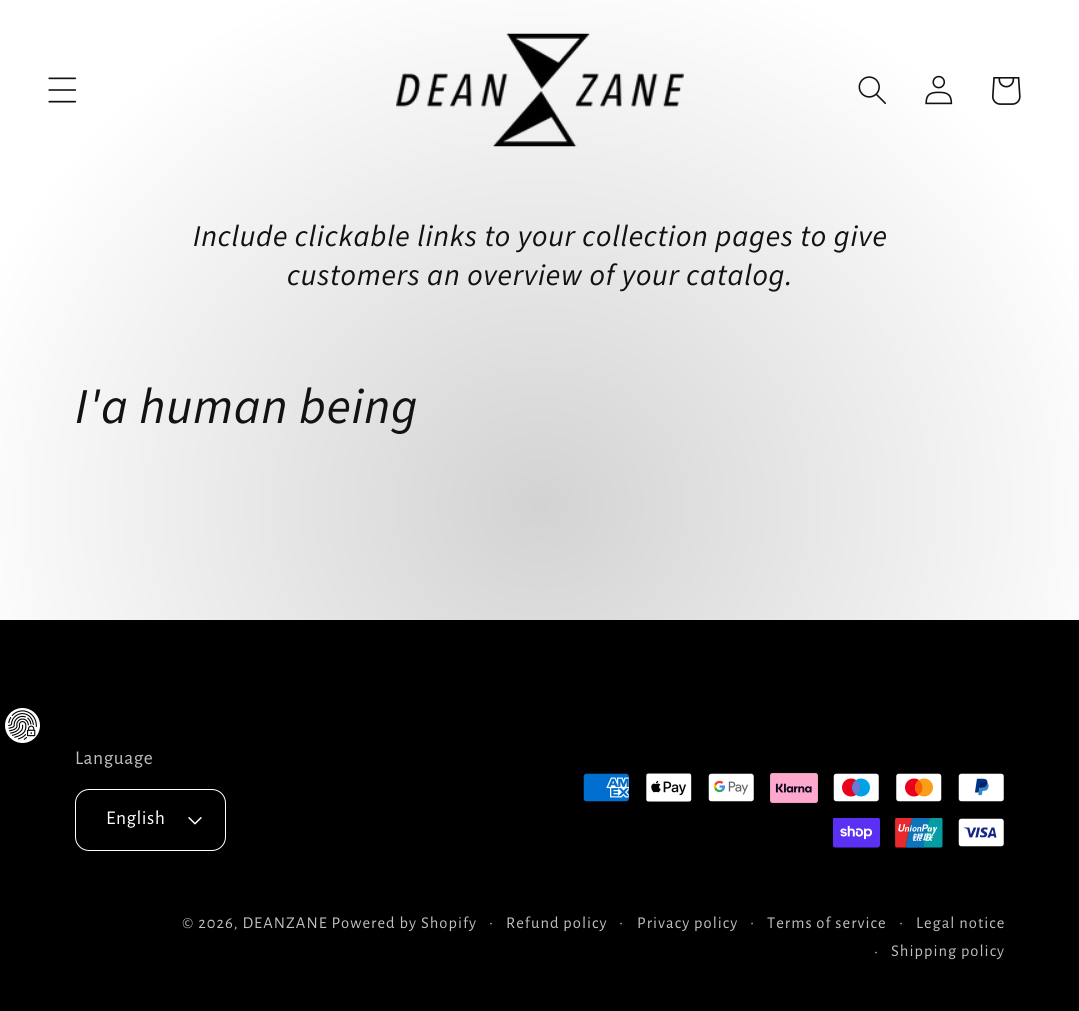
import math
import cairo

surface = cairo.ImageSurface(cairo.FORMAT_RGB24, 1079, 1011)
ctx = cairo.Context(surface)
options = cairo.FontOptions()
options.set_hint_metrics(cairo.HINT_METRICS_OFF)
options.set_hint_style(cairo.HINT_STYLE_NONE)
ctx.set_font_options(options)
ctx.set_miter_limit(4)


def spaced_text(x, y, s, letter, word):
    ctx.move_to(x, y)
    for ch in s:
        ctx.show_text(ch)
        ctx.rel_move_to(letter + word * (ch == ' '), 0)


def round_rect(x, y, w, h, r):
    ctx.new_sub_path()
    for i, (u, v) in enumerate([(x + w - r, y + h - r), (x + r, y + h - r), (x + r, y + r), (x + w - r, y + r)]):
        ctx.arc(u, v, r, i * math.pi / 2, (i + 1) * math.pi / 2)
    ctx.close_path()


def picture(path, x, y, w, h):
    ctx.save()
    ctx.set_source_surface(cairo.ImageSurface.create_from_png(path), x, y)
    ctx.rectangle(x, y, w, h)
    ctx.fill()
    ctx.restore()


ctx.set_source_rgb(1, 1, 1)
ctx.paint()
gradient = cairo.RadialGradient(0, 0, 0, 0, 0, 1)
gradient.set_matrix(cairo.Matrix(1 / 764, 0, 0, 1 / 715, -1 * 540 / 764, -1 * 506 / 715))
gradient.add_color_stop_rgba(0, 0.827, 0.827, 0.827, 1)
gradient.add_color_stop_rgba(0.79, 1, 1, 1, 1)
gradient.add_color_stop_rgba(0.97, 1, 1, 1, 1)
ctx.set_source(gradient)
ctx.rectangle(0, 0, 1079, 620)
ctx.fill()
picture("img1.png", 48, 77, 29, 26)
picture("img2.png", 396, 33, 288, 114)
picture("img3.png", 858, 76, 28, 28)
picture("img4.png", 925, 75, 28, 30)
picture("img5.png", 992, 77, 29, 28)
ctx.select_font_face("Source Sans Pro", cairo.FONT_SLANT_ITALIC)
ctx.set_font_size(30)
ctx.set_source_rgb(0.071, 0.071, 0.071)
spaced_text(193, 246, "Include clickable links to your collection pages to give", 0.75, 0)
spaced_text(287, 285, "customers an overview of your catalog.", 0.75, 0)
ctx.set_font_size(50)
spaced_text(75, 423, "I'a human being", 0.75, 0)
ctx.set_source_rgb(0, 0, 0)
ctx.rectangle(0, 620, 1079, 391)
ctx.fill()
ctx.set_source_rgb(1, 1, 1)
ctx.arc(22.5, 725.5, 17.5, 0, 2 * math.pi)
ctx.fill()
picture("img6.png", 8, 710, 29, 30)
ctx.select_font_face("Alegreya Sans")
ctx.set_font_size(19.5)
ctx.set_source_rgb(0.749, 0.749, 0.749)
spaced_text(75, 764, "Language", 0.5, 0)
picture("img7.png", 188, 817, 14, 8)
round_rect(75.5, 789.5, 150, 61, 13.5)
ctx.set_source_rgb(1, 1, 1)
ctx.set_line_width(1)
ctx.stroke()
spaced_text(106, 824, "English", 0.5, 0)
picture("img8.png", 583, 773, 46, 29)
picture("img9.png", 646, 773, 46, 29)
picture("img10.png", 708, 773, 46, 29)
picture("img11.png", 770, 773, 48, 30)
picture("img12.png", 833, 773, 46, 29)
picture("img13.png", 896, 773, 46, 29)
picture("img14.png", 958, 773, 46, 29)
picture("img15.png", 833, 818, 47, 30)
picture("img16.png", 895, 818, 48, 30)
picture("img17.png", 958, 818, 46, 29)
ctx.set_font_size(16.5)
ctx.set_source_rgb(0.749, 0.749, 0.749)
spaced_text(182, 928, "© 2026, DEANZANE Powered by Shopify", 1.05, 0)
ctx.set_font_size(18)
spaced_text(489, 928, "·", 1.05, 0)
ctx.set_font_size(16.5)
spaced_text(506, 928, "Refund policy", 1.05, 0)
ctx.set_font_size(18)
spaced_text(619, 928, "·", 1.05, 0)
ctx.set_font_size(16.5)
spaced_text(637, 928, "Privacy policy", 1.05, 0)
ctx.set_font_size(18)
spaced_text(750, 928, "·", 1.05, 0)
ctx.set_font_size(16.5)
spaced_text(767, 928, "Terms of service", 1.05, 0)
ctx.set_font_size(18)
spaced_text(899, 928, "·", 1.05, 0)
ctx.set_font_size(16.5)
spaced_text(916, 928, "Legal notice", 1.05, 0)
ctx.set_font_size(18)
spaced_text(874, 957, "·", 1.05, 0)
ctx.set_font_size(16.5)
spaced_text(891, 956, "Shipping policy", 1.05, 0)
surface.write_to_png("page.png")
